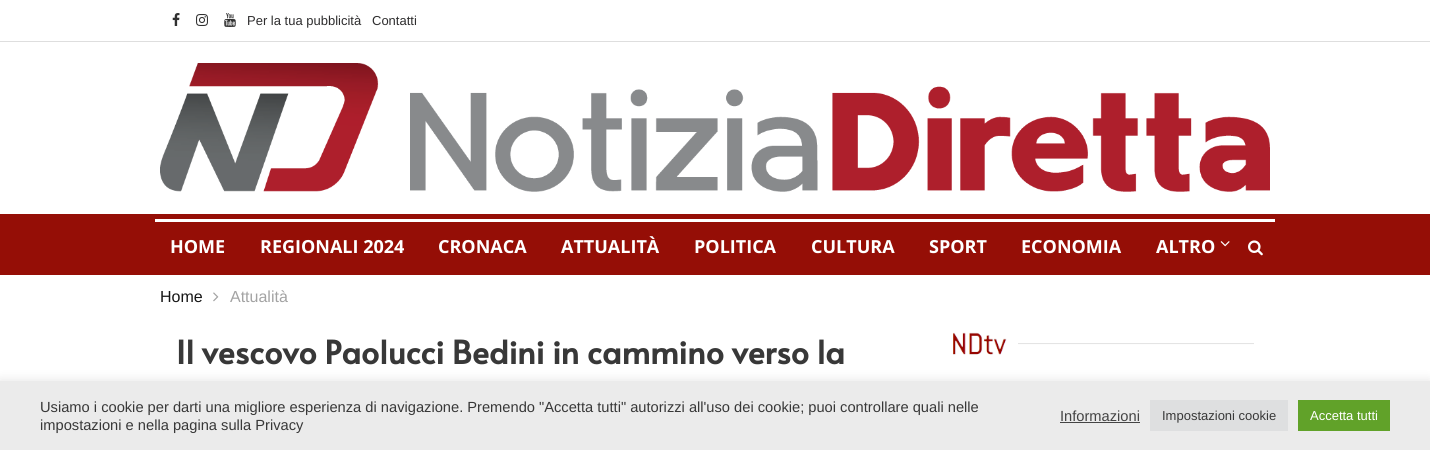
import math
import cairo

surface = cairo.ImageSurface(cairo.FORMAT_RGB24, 1430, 450)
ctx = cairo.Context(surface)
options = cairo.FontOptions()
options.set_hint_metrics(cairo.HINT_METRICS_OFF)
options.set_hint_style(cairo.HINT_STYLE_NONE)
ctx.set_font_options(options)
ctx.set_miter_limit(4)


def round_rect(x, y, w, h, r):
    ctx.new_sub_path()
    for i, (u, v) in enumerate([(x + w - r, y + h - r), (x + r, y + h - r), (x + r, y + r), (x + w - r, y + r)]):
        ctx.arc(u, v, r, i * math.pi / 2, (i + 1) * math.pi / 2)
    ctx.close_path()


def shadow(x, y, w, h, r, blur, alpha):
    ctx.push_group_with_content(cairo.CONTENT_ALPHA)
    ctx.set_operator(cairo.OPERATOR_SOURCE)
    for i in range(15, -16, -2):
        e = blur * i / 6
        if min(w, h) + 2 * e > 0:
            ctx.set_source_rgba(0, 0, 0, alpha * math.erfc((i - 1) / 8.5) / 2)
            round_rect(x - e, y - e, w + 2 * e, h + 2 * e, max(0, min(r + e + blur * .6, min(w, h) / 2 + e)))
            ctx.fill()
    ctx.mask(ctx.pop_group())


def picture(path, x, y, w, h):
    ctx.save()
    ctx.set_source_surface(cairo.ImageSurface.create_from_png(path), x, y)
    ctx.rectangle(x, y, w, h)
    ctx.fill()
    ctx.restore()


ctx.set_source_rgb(1, 1, 1)
ctx.paint()
ctx.set_source_rgb(0.871, 0.871, 0.871)
ctx.rectangle(0, 41, 1430, 1)
ctx.fill()
picture("img1.png", 172, 13, 8, 13)
picture("img2.png", 196, 14, 12, 12)
picture("img3.png", 224, 13, 12, 14)
ctx.select_font_face("Liberation Sans")
ctx.set_font_size(13)
ctx.set_source_rgb(0.18, 0.176, 0.18)
ctx.move_to(247, 25)
ctx.show_text("Per la tua pubblicità")
ctx.move_to(372, 25)
ctx.show_text("Contatti")
picture("img4.png", 160, 63, 1110, 129)
ctx.set_source_rgb(0.584, 0.055, 0.024)
ctx.rectangle(0, 214, 1430, 61)
ctx.fill()
ctx.set_source_rgb(1, 1, 1)
ctx.rectangle(155, 219, 1120, 3)
ctx.fill()
ctx.select_font_face("Open Sans", cairo.FONT_SLANT_NORMAL, cairo.FONT_WEIGHT_BOLD)
ctx.set_font_size(18)
ctx.move_to(170, 253)
ctx.show_text("HOME")
ctx.move_to(260, 253)
ctx.show_text("REGIONALI 2024")
ctx.move_to(438, 253)
ctx.show_text("CRONACA")
ctx.move_to(561, 253)
ctx.show_text("ATTUALITÀ")
ctx.move_to(694, 253)
ctx.show_text("POLITICA")
ctx.move_to(811, 253)
ctx.show_text("CULTURA")
ctx.move_to(929, 253)
ctx.show_text("SPORT")
ctx.move_to(1021, 253)
ctx.show_text("ECONOMIA")
ctx.move_to(1156, 253)
ctx.show_text("ALTRO")
picture("img5.png", 1220, 241, 10, 6)
picture("img6.png", 1248, 240, 15, 16)
ctx.select_font_face("Liberation Sans")
ctx.set_font_size(16)
ctx.set_source_rgb(0.086, 0.086, 0.086)
ctx.move_to(160, 302)
ctx.show_text("Home")
picture("img7.png", 213, 292, 6, 10)
ctx.set_source_rgb(0.639, 0.639, 0.639)
ctx.move_to(230, 302)
ctx.show_text("Attualità")
ctx.select_font_face("Alata", cairo.FONT_SLANT_NORMAL, cairo.FONT_WEIGHT_BOLD)
ctx.set_font_size(32)
ctx.set_source_rgb(0.22, 0.22, 0.22)
ctx.move_to(176, 364)
ctx.show_text("Il vescovo Paolucci Bedini in cammino verso la")
picture("img8.png", 953, 332, 301, 23)
ctx.set_source_rgb(0.675, 0.671, 0.671)
shadow(0, 380, 1430, 69, 0, 5, 0.3)
ctx.set_source_rgb(0.918, 0.918, 0.918)
ctx.rectangle(0, 381, 1430, 69)
ctx.fill()
ctx.select_font_face("Liberation Sans")
ctx.set_font_size(14.67)
ctx.set_source_rgb(0.22, 0.22, 0.22)
ctx.move_to(40, 412)
ctx.show_text("Usiamo i cookie per darti una migliore esperienza di navigazione. Premendo \"Accetta tutti\" autorizzi all'uso dei cookie; puoi controllare quali nelle")
ctx.move_to(40, 430)
ctx.show_text("impostazioni e nella pagina sulla Privacy")
ctx.set_source_rgb(0.267, 0.267, 0.267)
ctx.move_to(1060, 421)
ctx.show_text("Informazioni")
ctx.rectangle(1060, 422, 80, 1)
ctx.fill()
ctx.set_source_rgb(0.871, 0.875, 0.878)
ctx.rectangle(1150, 400, 138, 31)
ctx.fill()
ctx.set_font_size(13)
ctx.set_source_rgb(0.22, 0.22, 0.22)
ctx.move_to(1162, 420)
ctx.show_text("Impostazioni cookie")
ctx.set_source_rgb(0.38, 0.635, 0.161)
ctx.rectangle(1298, 400, 92, 31)
ctx.fill()
ctx.set_source_rgb(1, 1, 1)
ctx.move_to(1310, 420)
ctx.show_text("Accetta tutti")
surface.write_to_png("page.png")
